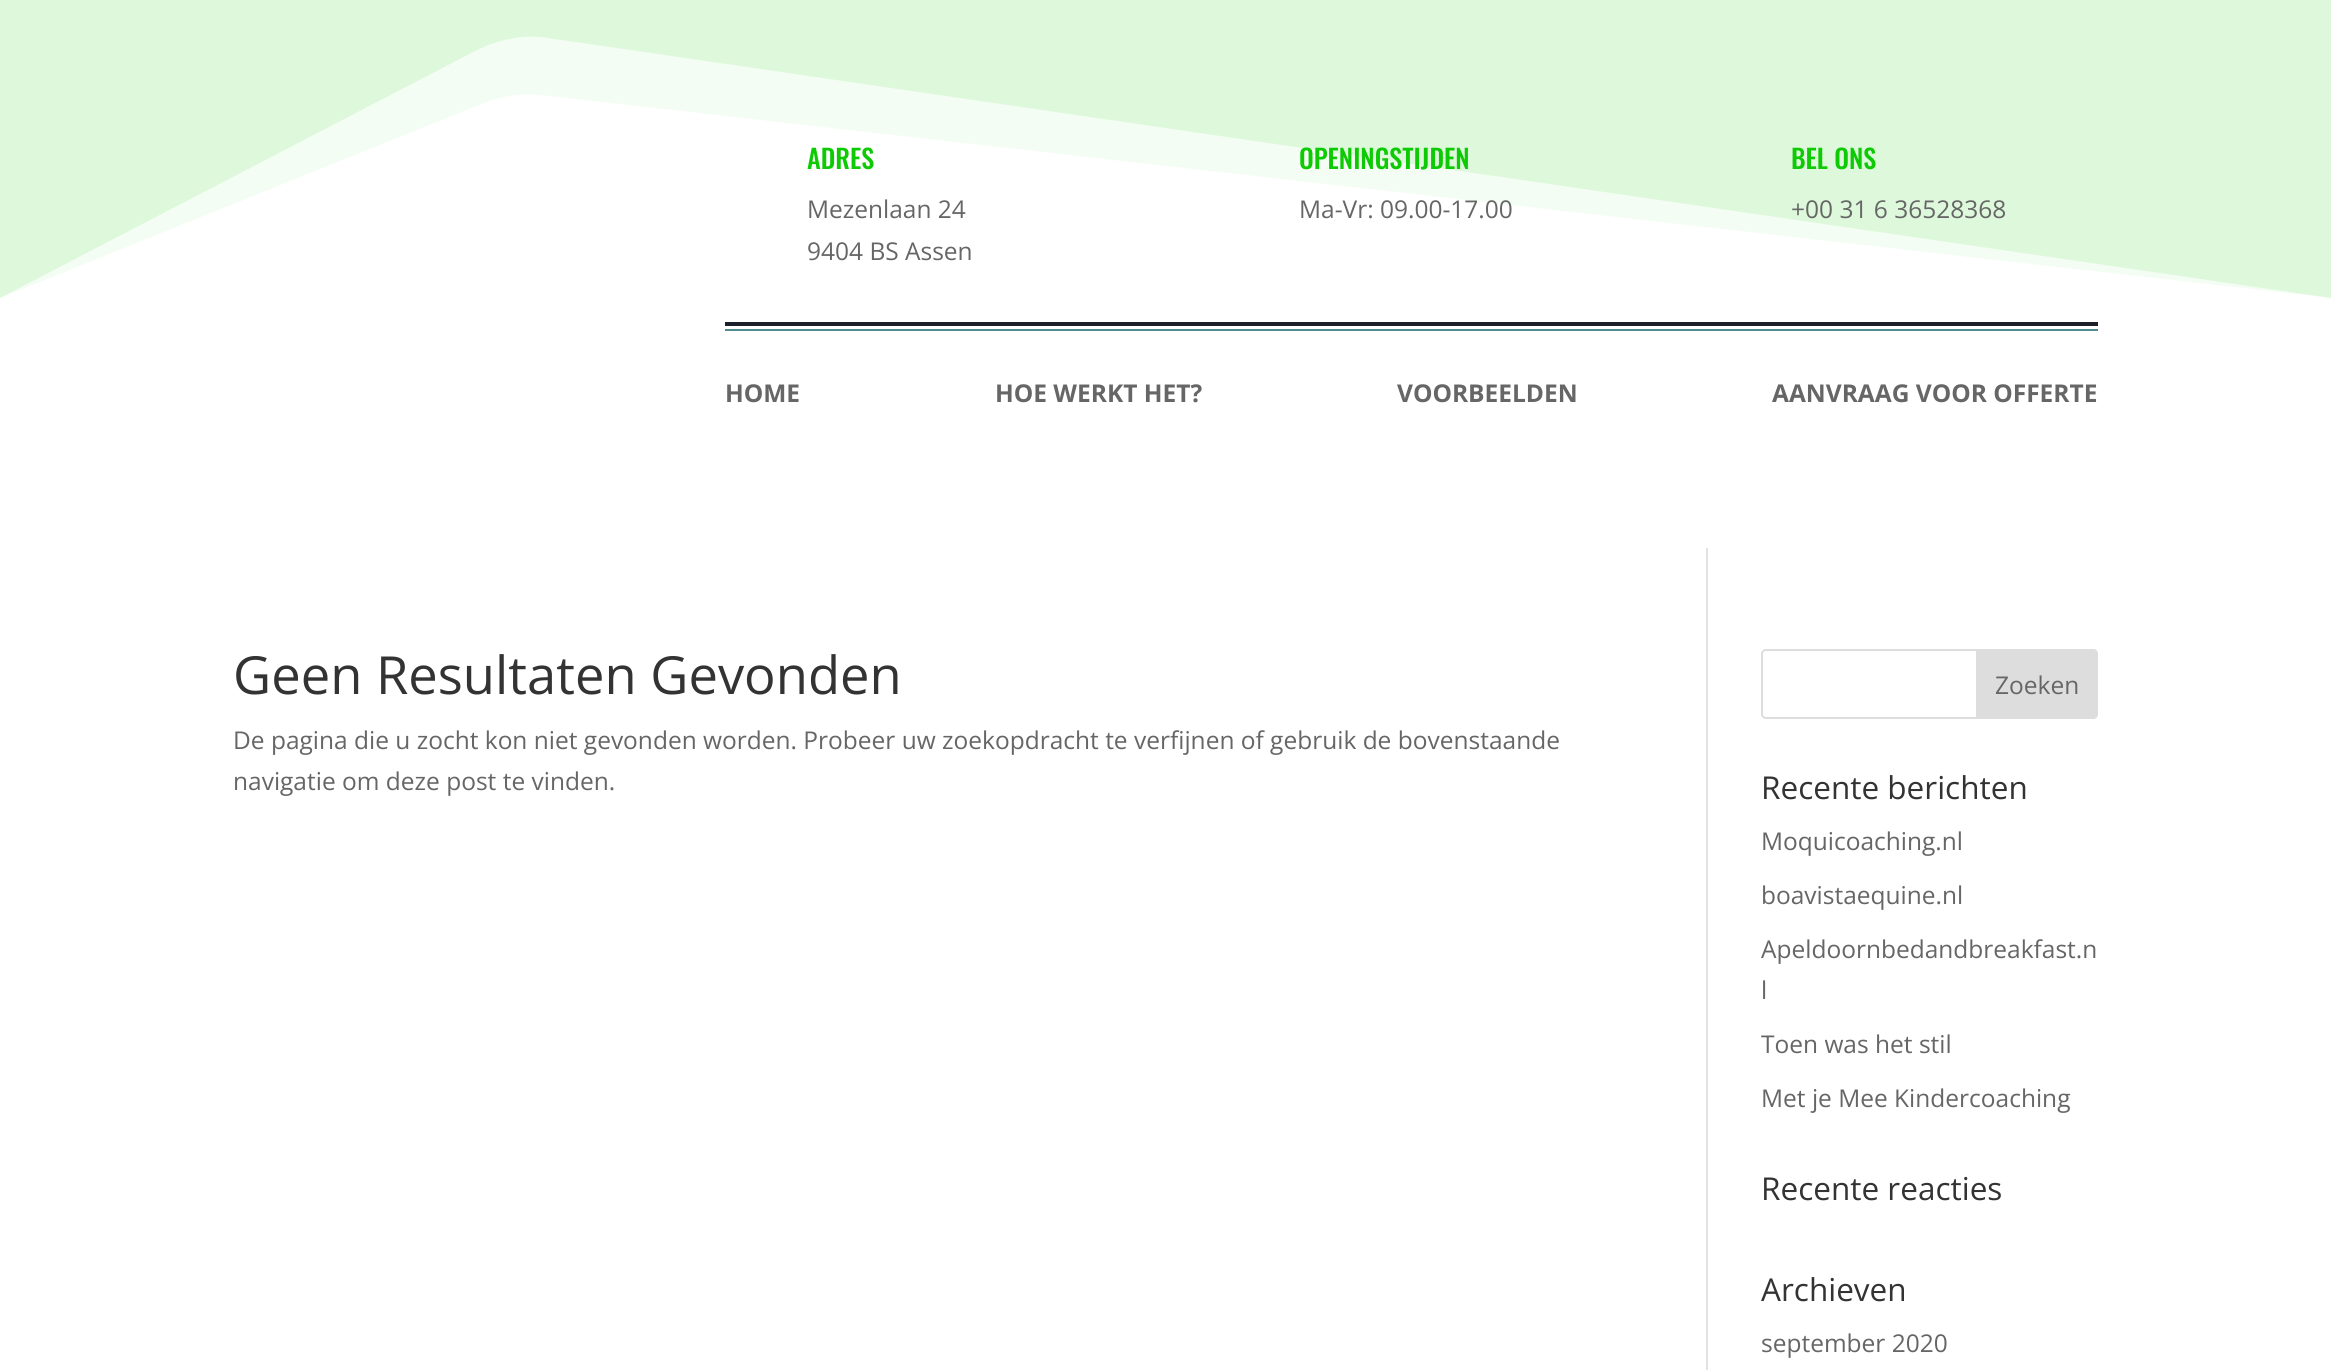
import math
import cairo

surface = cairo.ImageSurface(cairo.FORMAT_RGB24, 2331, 1370)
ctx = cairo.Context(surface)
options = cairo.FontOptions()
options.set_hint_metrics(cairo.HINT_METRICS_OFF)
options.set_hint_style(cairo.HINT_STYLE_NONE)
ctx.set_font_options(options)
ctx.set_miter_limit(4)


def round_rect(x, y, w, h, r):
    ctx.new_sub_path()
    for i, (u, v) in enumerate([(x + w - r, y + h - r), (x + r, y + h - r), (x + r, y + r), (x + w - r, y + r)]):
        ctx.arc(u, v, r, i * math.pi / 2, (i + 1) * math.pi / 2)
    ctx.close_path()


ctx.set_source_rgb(1, 1, 1)
ctx.paint()
ctx.set_source_rgb(0.957, 0.992, 0.953)
ctx.new_path()
ctx.move_to(0, 298)
ctx.line_to(484, 103)
ctx.curve_to(502, 96, 521, 93, 540, 95)
ctx.line_to(2331, 298)
ctx.line_to(2331, 0)
ctx.line_to(0, 0)
ctx.close_path()
ctx.fill()
ctx.set_source_rgba(0.055, 0.792, 0.016, 0.1)
ctx.new_path()
ctx.move_to(0, 298)
ctx.line_to(477, 50)
ctx.curve_to(500, 39, 524, 34, 548, 38)
ctx.line_to(2331, 298)
ctx.line_to(2331, 0)
ctx.line_to(0, 0)
ctx.close_path()
ctx.fill()
ctx.set_source_rgb(0.114, 0.125, 0.169)
ctx.rectangle(725, 322, 1373, 4)
ctx.fill()
ctx.select_font_face("Oswald Medium")
ctx.set_font_size(26.25)
ctx.set_source_rgb(0.055, 0.792, 0.016)
ctx.move_to(807, 169)
ctx.show_text("ADRES")
ctx.select_font_face("Open Sans")
ctx.set_font_size(24.5)
ctx.set_source_rgb(0.4, 0.4, 0.4)
ctx.move_to(807, 218)
ctx.show_text("Mezenlaan 24")
ctx.move_to(807, 260)
ctx.show_text("9404 BS Assen")
ctx.select_font_face("Oswald Medium")
ctx.set_font_size(26.25)
ctx.set_source_rgb(0.055, 0.792, 0.016)
ctx.move_to(1299, 169)
ctx.show_text("OPENINGSTIJDEN")
ctx.select_font_face("Open Sans")
ctx.set_font_size(24.5)
ctx.set_source_rgb(0.4, 0.4, 0.4)
ctx.move_to(1299, 218)
ctx.show_text("Ma-Vr: 09.00-17.00")
ctx.select_font_face("Oswald Medium")
ctx.set_font_size(26.25)
ctx.set_source_rgb(0.055, 0.792, 0.016)
ctx.move_to(1791, 169)
ctx.show_text("BEL ONS")
ctx.select_font_face("Open Sans")
ctx.set_font_size(24.5)
ctx.set_source_rgb(0.4, 0.4, 0.4)
ctx.move_to(1791, 218)
ctx.show_text("+00 31 6 36528368")
ctx.set_source_rgb(0.318, 0.549, 0.576)
ctx.rectangle(725, 329, 1373, 2)
ctx.fill()
ctx.select_font_face("Open Sans", cairo.FONT_SLANT_NORMAL, cairo.FONT_WEIGHT_BOLD)
ctx.set_source_rgb(0.4, 0.4, 0.4)
ctx.move_to(725, 402)
ctx.show_text("HOME")
ctx.move_to(995, 402)
ctx.show_text("HOE WERKT HET?")
ctx.move_to(1397, 402)
ctx.show_text("VOORBEELDEN")
ctx.move_to(1772, 402)
ctx.show_text("AANVRAAG VOOR OFFERTE")
ctx.set_source_rgb(0.886, 0.886, 0.886)
ctx.rectangle(1706, 548, 2, 822)
ctx.fill()
ctx.select_font_face("Open Sans")
ctx.set_font_size(52.5)
ctx.set_source_rgb(0.2, 0.2, 0.2)
ctx.move_to(233, 694)
ctx.show_text("Geen Resultaten Gevonden")
ctx.set_font_size(24.5)
ctx.set_source_rgb(0.4, 0.4, 0.4)
ctx.move_to(233, 749)
ctx.show_text("De pagina die u zocht kon niet gevonden worden. Probeer uw zoekopdracht te verfijnen of gebruik de bovenstaande")
ctx.move_to(233, 790)
ctx.show_text("navigatie om deze post te vinden.")
round_rect(1762, 650, 335, 68, 4)
ctx.set_source_rgb(0.867, 0.867, 0.867)
ctx.stroke()
ctx.new_path()
ctx.move_to(1977, 650)
ctx.line_to(2093, 650)
ctx.curve_to(2095, 650, 2097, 652, 2097, 654)
ctx.line_to(2097, 714)
ctx.curve_to(2097, 716, 2095, 718, 2093, 718)
ctx.line_to(1977, 718)
ctx.close_path()
ctx.fill_preserve()
ctx.stroke()
ctx.set_source_rgb(0.4, 0.4, 0.4)
ctx.move_to(1995, 694)
ctx.show_text("Zoeken")
ctx.set_font_size(31.5)
ctx.set_source_rgb(0.2, 0.2, 0.2)
ctx.move_to(1761, 799)
ctx.show_text("Recente berichten")
ctx.set_font_size(24.5)
ctx.set_source_rgb(0.4, 0.4, 0.4)
ctx.move_to(1761, 850)
ctx.show_text("Moquicoaching.nl")
ctx.move_to(1761, 904)
ctx.show_text("boavistaequine.nl")
ctx.move_to(1761, 958)
ctx.show_text("Apeldoornbedandbreakfast.n")
ctx.move_to(1761, 999)
ctx.show_text("l")
ctx.move_to(1761, 1053)
ctx.show_text("Toen was het stil")
ctx.move_to(1761, 1107)
ctx.show_text("Met je Mee Kindercoaching")
ctx.set_font_size(31.5)
ctx.set_source_rgb(0.2, 0.2, 0.2)
ctx.move_to(1761, 1200)
ctx.show_text("Recente reacties")
ctx.move_to(1761, 1301)
ctx.show_text("Archieven")
ctx.set_font_size(24.5)
ctx.set_source_rgb(0.4, 0.4, 0.4)
ctx.move_to(1761, 1352)
ctx.show_text("september 2020")
surface.write_to_png("page.png")
